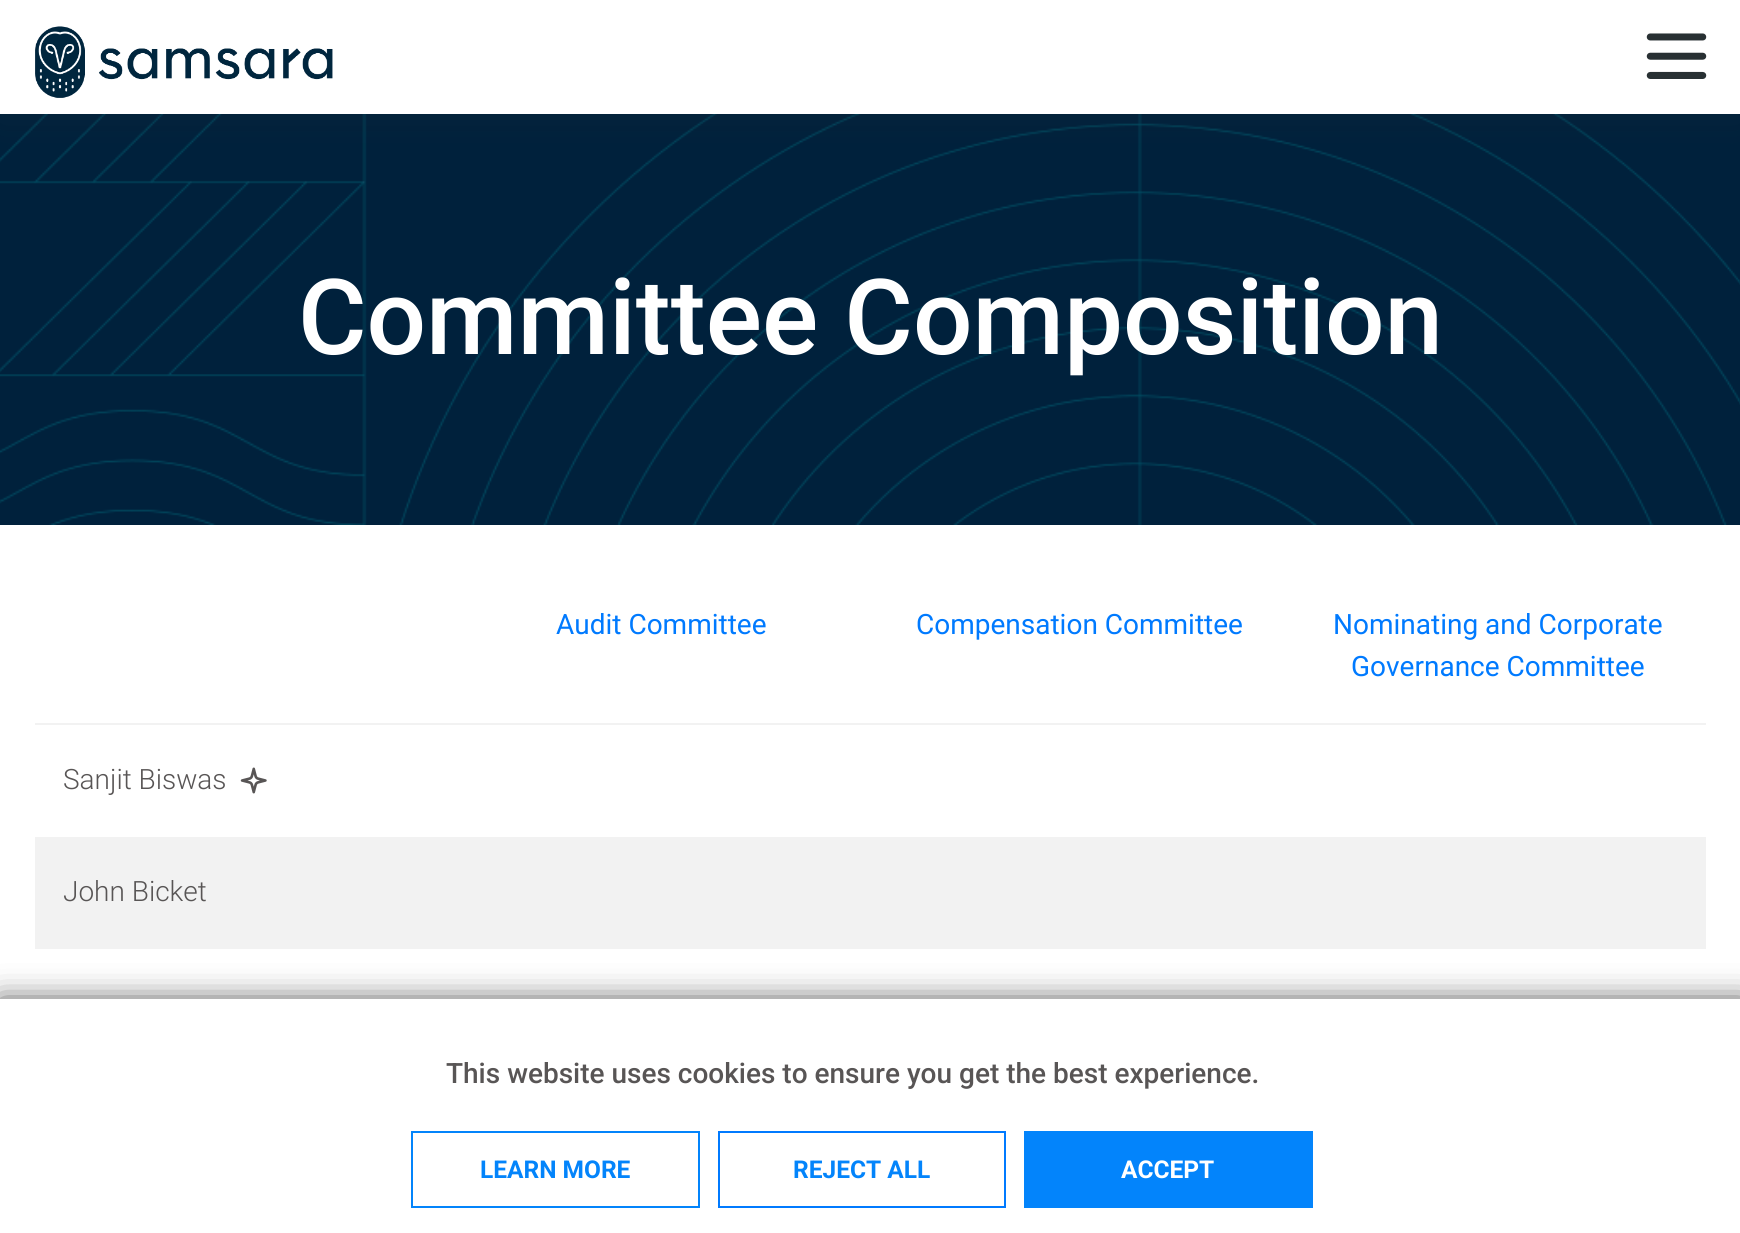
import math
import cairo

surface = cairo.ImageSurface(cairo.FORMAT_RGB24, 1740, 1233)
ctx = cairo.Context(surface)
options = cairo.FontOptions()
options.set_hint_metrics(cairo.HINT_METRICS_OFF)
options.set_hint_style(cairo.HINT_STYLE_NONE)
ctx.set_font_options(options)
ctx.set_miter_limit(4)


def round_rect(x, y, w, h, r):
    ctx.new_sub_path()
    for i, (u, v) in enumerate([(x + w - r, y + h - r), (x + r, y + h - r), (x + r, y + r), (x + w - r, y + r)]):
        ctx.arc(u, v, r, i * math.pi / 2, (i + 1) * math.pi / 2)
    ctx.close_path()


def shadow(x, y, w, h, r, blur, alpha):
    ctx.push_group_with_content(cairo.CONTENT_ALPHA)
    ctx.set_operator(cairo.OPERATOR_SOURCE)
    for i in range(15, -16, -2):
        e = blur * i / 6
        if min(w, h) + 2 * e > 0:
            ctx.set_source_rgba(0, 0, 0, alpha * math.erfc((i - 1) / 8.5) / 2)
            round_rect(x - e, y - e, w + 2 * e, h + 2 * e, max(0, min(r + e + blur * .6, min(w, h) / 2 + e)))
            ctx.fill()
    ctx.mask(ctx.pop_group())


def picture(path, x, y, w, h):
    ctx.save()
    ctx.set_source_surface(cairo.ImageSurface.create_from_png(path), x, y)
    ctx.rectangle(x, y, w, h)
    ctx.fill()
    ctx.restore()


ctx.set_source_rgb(1, 1, 1)
ctx.paint()
picture("img3.png", 0, 114, 1740, 411)
ctx.set_source_rgb(0.157, 0.188, 0.2)
shadow(0, 4, 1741, 113, 0, 17.5, 0.2)
ctx.set_source_rgb(1, 1, 1)
ctx.rectangle(0, 0, 1740, 114)
ctx.fill()
picture("img1.png", 35, 26, 298, 72)
picture("img2.png", 1646, 33, 61, 46)
ctx.select_font_face("Roboto Medium")
ctx.set_font_size(105)
ctx.move_to(298, 354)
ctx.show_text("Committee Composition")
ctx.set_source_rgb(0.949, 0.949, 0.949)
ctx.rectangle(35, 723, 1671, 2)
ctx.fill()
ctx.select_font_face("Roboto")
ctx.set_font_size(28)
ctx.set_source_rgb(0, 0.478, 1)
ctx.move_to(556, 634)
ctx.show_text("Audit Committee")
ctx.move_to(916, 634)
ctx.show_text("Compensation Committee")
ctx.move_to(1333, 634)
ctx.show_text("Nominating and Corporate")
ctx.move_to(1351, 676)
ctx.show_text("Governance Committee")
ctx.select_font_face("Roboto Light")
ctx.set_source_rgb(0.345, 0.333, 0.333)
ctx.move_to(63, 789)
ctx.show_text("Sanjit Biswas")
picture("img4.png", 240, 767, 27, 27)
ctx.set_source_rgb(0.949, 0.949, 0.949)
ctx.rectangle(35, 837, 1671, 112)
ctx.fill()
ctx.set_source_rgb(0.345, 0.333, 0.333)
ctx.move_to(63, 901)
ctx.show_text("John Bicket")
ctx.set_source_rgb(0.2, 0.2, 0.2)
shadow(0, 1003, 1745, 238, 0, 16, 1)
ctx.set_source_rgb(1, 1, 1)
ctx.rectangle(0, 999, 1740, 234)
ctx.fill()
ctx.select_font_face("Roboto Medium")
ctx.set_source_rgb(0.345, 0.333, 0.333)
ctx.move_to(446, 1083)
ctx.show_text("This website uses cookies to ensure you get the best experience.")
ctx.rectangle(412, 1132, 287, 75)
ctx.set_source_rgb(0.012, 0.518, 0.984)
ctx.stroke()
ctx.select_font_face("Roboto", cairo.FONT_SLANT_NORMAL, cairo.FONT_WEIGHT_BOLD)
ctx.set_font_size(24.5)
ctx.move_to(480, 1178)
ctx.show_text("LEARN MORE")
ctx.rectangle(719, 1132, 286, 75)
ctx.set_source_rgb(0, 0.478, 1)
ctx.stroke()
ctx.set_source_rgb(0.012, 0.518, 0.984)
ctx.move_to(793, 1178)
ctx.show_text("REJECT ALL")
ctx.rectangle(1024, 1131, 289, 77)
ctx.fill()
ctx.set_source_rgb(1, 1, 1)
ctx.move_to(1121, 1178)
ctx.show_text("ACCEPT")
surface.write_to_png("page.png")
